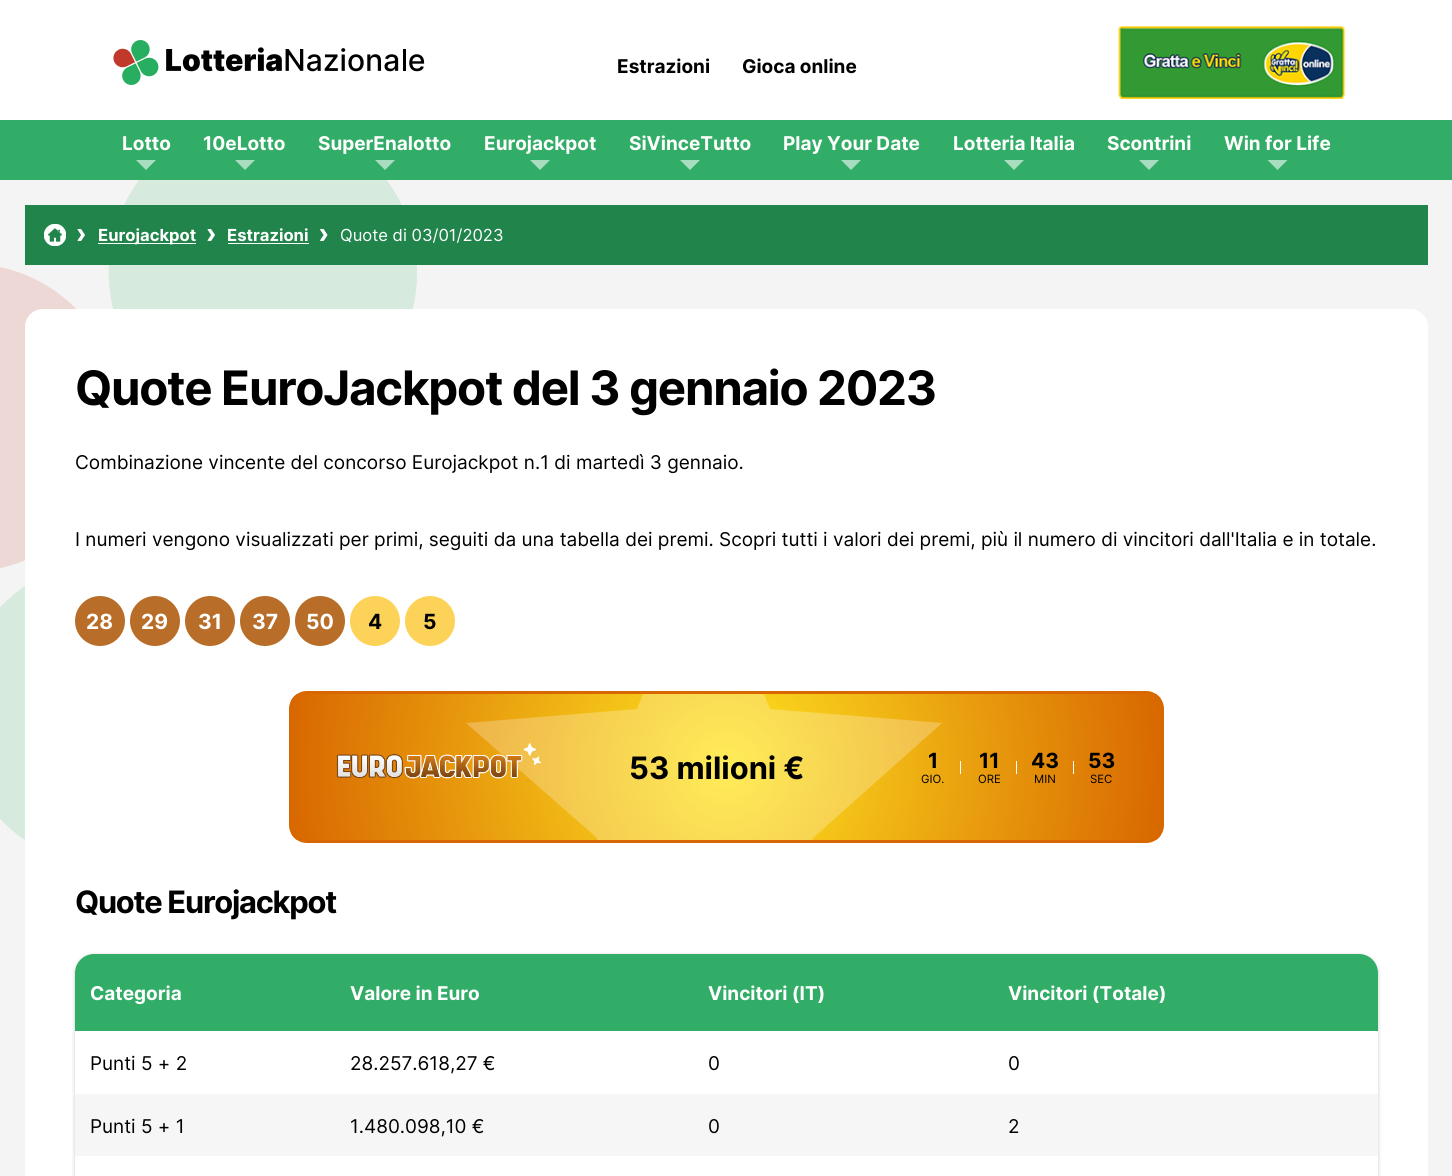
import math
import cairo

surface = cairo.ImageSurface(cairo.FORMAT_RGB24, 1452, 1176)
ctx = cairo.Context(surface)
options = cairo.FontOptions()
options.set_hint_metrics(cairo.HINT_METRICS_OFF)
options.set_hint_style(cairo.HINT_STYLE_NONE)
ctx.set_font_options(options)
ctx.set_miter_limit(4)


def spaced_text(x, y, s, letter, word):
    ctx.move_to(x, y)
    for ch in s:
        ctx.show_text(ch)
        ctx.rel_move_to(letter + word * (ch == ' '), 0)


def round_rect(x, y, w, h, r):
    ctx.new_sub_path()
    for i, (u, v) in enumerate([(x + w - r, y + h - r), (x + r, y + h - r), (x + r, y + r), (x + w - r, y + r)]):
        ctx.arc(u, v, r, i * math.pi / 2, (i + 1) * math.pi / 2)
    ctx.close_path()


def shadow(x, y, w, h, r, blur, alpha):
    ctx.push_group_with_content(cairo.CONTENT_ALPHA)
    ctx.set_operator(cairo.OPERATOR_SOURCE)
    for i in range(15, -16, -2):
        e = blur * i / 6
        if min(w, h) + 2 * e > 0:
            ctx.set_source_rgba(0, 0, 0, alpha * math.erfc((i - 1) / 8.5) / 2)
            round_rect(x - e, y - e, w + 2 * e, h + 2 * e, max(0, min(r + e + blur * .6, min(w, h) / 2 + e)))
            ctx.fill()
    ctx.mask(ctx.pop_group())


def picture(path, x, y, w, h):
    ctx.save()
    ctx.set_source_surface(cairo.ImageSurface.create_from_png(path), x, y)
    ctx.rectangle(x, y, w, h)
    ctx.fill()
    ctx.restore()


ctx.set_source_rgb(0.957, 0.957, 0.957)
ctx.paint()
ctx.set_source_rgb(1, 1, 1)
ctx.rectangle(0, 0, 1452, 120)
ctx.fill()
ctx.set_source_rgb(0.196, 0.678, 0.404)
ctx.rectangle(0, 120, 1452, 60)
ctx.fill()
picture("img1.png", 113, 40, 312, 45)
ctx.select_font_face("inter", cairo.FONT_SLANT_NORMAL, cairo.FONT_WEIGHT_BOLD)
ctx.set_font_size(20)
ctx.set_source_rgb(0, 0, 0)
ctx.move_to(617, 73)
ctx.show_text("Estrazioni")
ctx.move_to(742, 73)
ctx.show_text("Gioca online")
picture("img2.png", 1118, 26, 228, 74)
ctx.set_source_rgb(1, 1, 1)
ctx.move_to(122, 150)
ctx.show_text("Lotto")
ctx.set_source_rgb(0.663, 0.867, 0.749)
ctx.new_path()
ctx.move_to(136, 160)
ctx.line_to(156, 160)
ctx.line_to(146, 170)
ctx.close_path()
ctx.fill()
ctx.set_source_rgb(1, 1, 1)
ctx.move_to(203, 150)
ctx.show_text("10eLotto")
ctx.set_source_rgb(0.663, 0.867, 0.749)
ctx.new_path()
ctx.move_to(235, 160)
ctx.line_to(255, 160)
ctx.line_to(245, 170)
ctx.close_path()
ctx.fill()
ctx.set_source_rgb(1, 1, 1)
ctx.move_to(318, 150)
ctx.show_text("SuperEnalotto")
ctx.set_source_rgb(0.663, 0.867, 0.749)
ctx.new_path()
ctx.move_to(375, 160)
ctx.line_to(395, 160)
ctx.line_to(385, 170)
ctx.close_path()
ctx.fill()
ctx.set_source_rgb(1, 1, 1)
ctx.move_to(484, 150)
ctx.show_text("Eurojackpot")
ctx.set_source_rgb(0.663, 0.867, 0.749)
ctx.new_path()
ctx.move_to(530, 160)
ctx.line_to(550, 160)
ctx.line_to(540, 170)
ctx.close_path()
ctx.fill()
ctx.set_source_rgb(1, 1, 1)
ctx.move_to(629, 150)
ctx.show_text("SiVinceTutto")
ctx.set_source_rgb(0.663, 0.867, 0.749)
ctx.new_path()
ctx.move_to(680, 160)
ctx.line_to(700, 160)
ctx.line_to(690, 170)
ctx.close_path()
ctx.fill()
ctx.set_source_rgb(1, 1, 1)
ctx.move_to(783, 150)
ctx.show_text("Play Your Date")
ctx.set_source_rgb(0.663, 0.867, 0.749)
ctx.new_path()
ctx.move_to(841, 160)
ctx.line_to(861, 160)
ctx.line_to(851, 170)
ctx.close_path()
ctx.fill()
ctx.set_source_rgb(1, 1, 1)
ctx.move_to(953, 150)
ctx.show_text("Lotteria Italia")
ctx.set_source_rgb(0.663, 0.867, 0.749)
ctx.new_path()
ctx.move_to(1004, 160)
ctx.line_to(1024, 160)
ctx.line_to(1014, 170)
ctx.close_path()
ctx.fill()
ctx.set_source_rgb(1, 1, 1)
ctx.move_to(1107, 150)
ctx.show_text("Scontrini")
ctx.set_source_rgb(0.663, 0.867, 0.749)
ctx.new_path()
ctx.move_to(1139, 160)
ctx.line_to(1159, 160)
ctx.line_to(1149, 170)
ctx.close_path()
ctx.fill()
ctx.set_source_rgb(1, 1, 1)
ctx.move_to(1224, 150)
ctx.show_text("Win for Life")
ctx.set_source_rgb(0.663, 0.867, 0.749)
ctx.new_path()
ctx.move_to(1267.5, 160)
ctx.line_to(1287.5, 160)
ctx.line_to(1277.5, 170)
ctx.close_path()
ctx.fill()
picture("img3.png", 0, 180, 417, 660)
ctx.set_source_rgb(0.125, 0.518, 0.294)
ctx.rectangle(25, 205, 1403, 60)
ctx.fill()
picture("img4.png", 44, 224, 22, 22)
picture("img5.png", 77, 229, 8, 12)
ctx.set_source_rgb(1, 1, 1)
ctx.rectangle(98, 243, 98, 1)
ctx.fill()
ctx.set_font_size(17.5)
ctx.move_to(98, 241)
ctx.show_text("Eurojackpot")
picture("img5.png", 207, 229, 8, 12)
ctx.move_to(227, 241)
ctx.show_text("Estrazioni")
ctx.rectangle(228, 243, 81, 1)
ctx.fill()
picture("img6.png", 320, 229, 8, 12)
ctx.select_font_face("inter")
ctx.move_to(340, 241)
ctx.show_text("Quote di 03/01/2023")
round_rect(25, 309, 1403, 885, 18)
ctx.fill()
ctx.select_font_face("inter", cairo.FONT_SLANT_NORMAL, cairo.FONT_WEIGHT_BOLD)
ctx.set_font_size(50)
ctx.set_source_rgb(0, 0, 0)
spaced_text(75, 405, "Quote EuroJackpot del 3 gennaio 2023", -1.25, 0)
ctx.select_font_face("inter")
ctx.set_font_size(20)
ctx.move_to(75, 469)
ctx.show_text("Combinazione vincente del concorso Eurojackpot n.1 di martedì 3 gennaio.")
ctx.move_to(75, 546)
ctx.show_text("I numeri vengono visualizzati per primi, seguiti da una tabella dei premi. Scopri tutti i valori dei premi, più il numero di vincitori dall'Italia e in totale.")
ctx.set_source_rgb(0.722, 0.427, 0.157)
ctx.new_path()
ctx.arc(100, 621, 25, 0, 2 * math.pi)
ctx.fill()
ctx.select_font_face("inter", cairo.FONT_SLANT_NORMAL, cairo.FONT_WEIGHT_BOLD)
ctx.set_font_size(22)
ctx.set_source_rgb(1, 1, 1)
ctx.move_to(86, 629)
ctx.show_text("28")
ctx.set_source_rgb(0.722, 0.427, 0.157)
ctx.new_path()
ctx.arc(155, 621, 25, 0, 2 * math.pi)
ctx.fill()
ctx.set_source_rgb(1, 1, 1)
ctx.move_to(141, 629)
ctx.show_text("29")
ctx.set_source_rgb(0.722, 0.427, 0.157)
ctx.new_path()
ctx.arc(210, 621, 25, 0, 2 * math.pi)
ctx.fill()
ctx.set_source_rgb(1, 1, 1)
ctx.move_to(198, 629)
ctx.show_text("31")
ctx.set_source_rgb(0.722, 0.427, 0.157)
ctx.new_path()
ctx.arc(265, 621, 25, 0, 2 * math.pi)
ctx.fill()
ctx.set_source_rgb(1, 1, 1)
ctx.move_to(252, 629)
ctx.show_text("37")
ctx.set_source_rgb(0.722, 0.427, 0.157)
ctx.new_path()
ctx.arc(320, 621, 25, 0, 2 * math.pi)
ctx.fill()
ctx.set_source_rgb(1, 1, 1)
ctx.move_to(306, 629)
ctx.show_text("50")
ctx.set_source_rgb(0.988, 0.827, 0.345)
ctx.new_path()
ctx.arc(375, 621, 25, 0, 2 * math.pi)
ctx.fill()
ctx.set_source_rgb(0, 0, 0)
ctx.move_to(368, 629)
ctx.show_text("4")
ctx.set_source_rgb(0.988, 0.827, 0.345)
ctx.new_path()
ctx.arc(430, 621, 25, 0, 2 * math.pi)
ctx.fill()
ctx.set_source_rgb(0, 0, 0)
ctx.move_to(423, 629)
ctx.show_text("5")
ctx.save()
round_rect(289, 691, 875, 152, 18)
ctx.clip()
gradient = cairo.RadialGradient(726, 767, 0, 726, 767, 441)
gradient.add_color_stop_rgba(0, 1, 0.902, 0.129, 1)
gradient.add_color_stop_rgba(1, 0.847, 0.404, 0, 1)
ctx.set_source(gradient)
ctx.rectangle(291, 694, 870, 146)
ctx.fill()
ctx.restore()
round_rect(290.5, 692.5, 872, 149, 16.5)
ctx.set_source_rgb(0.847, 0.404, 0)
ctx.set_line_width(3)
ctx.stroke()
ctx.set_source_rgba(1, 1, 1, 0.25)
ctx.new_path()
ctx.move_to(597, 840)
ctx.line_to(813, 840)
ctx.line_to(813, 838)
ctx.line_to(942, 723)
ctx.line_to(770, 709)
ctx.line_to(764, 694)
ctx.line_to(643, 694)
ctx.line_to(637, 709)
ctx.line_to(466, 723)
ctx.line_to(597, 838)
ctx.close_path()
ctx.fill()
picture("img7.png", 336, 743, 205, 36)
ctx.set_source_rgb(0, 0, 0)
ctx.move_to(928, 768)
ctx.show_text("1")
ctx.set_source_rgb(1, 1, 1)
ctx.rectangle(960, 761, 1, 13)
ctx.fill()
ctx.select_font_face("inter")
ctx.set_font_size(12)
ctx.set_source_rgb(0, 0, 0)
ctx.move_to(921, 783)
ctx.show_text("GIO.")
ctx.select_font_face("inter", cairo.FONT_SLANT_NORMAL, cairo.FONT_WEIGHT_BOLD)
ctx.set_font_size(22)
ctx.move_to(979, 768)
ctx.show_text("11")
ctx.set_source_rgb(1, 1, 1)
ctx.rectangle(1016, 761, 1, 13)
ctx.fill()
ctx.select_font_face("inter")
ctx.set_font_size(12)
ctx.set_source_rgb(0, 0, 0)
ctx.move_to(978, 783)
ctx.show_text("ORE")
ctx.select_font_face("inter", cairo.FONT_SLANT_NORMAL, cairo.FONT_WEIGHT_BOLD)
ctx.set_font_size(22)
ctx.move_to(1031, 768)
ctx.show_text("43")
ctx.set_source_rgb(1, 1, 1)
ctx.rectangle(1073, 761, 1, 13)
ctx.fill()
ctx.select_font_face("inter")
ctx.set_font_size(12)
ctx.set_source_rgb(0, 0, 0)
ctx.move_to(1034, 783)
ctx.show_text("MIN")
ctx.select_font_face("inter", cairo.FONT_SLANT_NORMAL, cairo.FONT_WEIGHT_BOLD)
ctx.set_font_size(22)
ctx.move_to(1088, 768)
ctx.show_text("53")
ctx.select_font_face("inter")
ctx.set_font_size(12)
ctx.move_to(1090, 783)
ctx.show_text("SEC")
ctx.select_font_face("inter", cairo.FONT_SLANT_NORMAL, cairo.FONT_WEIGHT_BOLD)
ctx.set_font_size(32.5)
ctx.move_to(629, 779)
ctx.show_text("53 milioni €")
spaced_text(75, 913, "Quote Eurojackpot", -1.25, 0)
ctx.save()
ctx.set_fill_rule(cairo.FILL_RULE_EVEN_ODD)
ctx.new_path()
ctx.move_to(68, 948)
ctx.line_to(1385, 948)
ctx.line_to(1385, 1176)
ctx.line_to(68, 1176)
ctx.close_path()
ctx.move_to(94, 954)
ctx.line_to(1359, 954)
ctx.curve_to(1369.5, 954, 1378, 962.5, 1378, 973)
ctx.line_to(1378, 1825)
ctx.curve_to(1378, 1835.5, 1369.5, 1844, 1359, 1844)
ctx.line_to(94, 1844)
ctx.curve_to(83.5, 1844, 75, 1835.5, 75, 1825)
ctx.line_to(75, 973)
ctx.curve_to(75, 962.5, 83.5, 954, 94, 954)
ctx.close_path()
ctx.clip()
ctx.set_source_rgb(0, 0, 0)
shadow(75, 955, 1303, 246, 19, 2, 0.22)
ctx.restore()
ctx.set_source_rgb(0.196, 0.678, 0.404)
ctx.new_path()
ctx.move_to(94, 954)
ctx.line_to(335, 954)
ctx.line_to(335, 1031)
ctx.line_to(75, 1031)
ctx.line_to(75, 973)
ctx.curve_to(75, 962.5, 83.5, 954, 94, 954)
ctx.close_path()
ctx.fill()
ctx.set_font_size(20)
ctx.set_source_rgb(1, 1, 1)
ctx.move_to(90, 1000)
ctx.show_text("Categoria")
ctx.set_source_rgb(0.196, 0.678, 0.404)
ctx.rectangle(335, 954, 659, 77)
ctx.fill()
ctx.set_source_rgb(1, 1, 1)
ctx.move_to(350, 1000)
ctx.show_text("Valore in Euro")
ctx.move_to(708, 1000)
ctx.show_text("Vincitori (IT)")
ctx.set_source_rgb(0.196, 0.678, 0.404)
ctx.new_path()
ctx.move_to(994, 954)
ctx.line_to(1359, 954)
ctx.curve_to(1369.5, 954, 1378, 962.5, 1378, 973)
ctx.line_to(1378, 1031)
ctx.line_to(994, 1031)
ctx.close_path()
ctx.fill()
ctx.set_source_rgb(1, 1, 1)
ctx.move_to(1008, 1000)
ctx.show_text("Vincitori (Totale)")
ctx.select_font_face("inter")
ctx.set_source_rgb(0, 0, 0)
ctx.move_to(90, 1070)
ctx.show_text("Punti 5 + 2")
ctx.move_to(350, 1070)
ctx.show_text("28.257.618,27 €")
ctx.move_to(708, 1070)
ctx.show_text("0")
ctx.set_source_rgb(1, 1, 1)
ctx.rectangle(1377, 1031, 1, 63)
ctx.fill()
ctx.set_source_rgb(0, 0, 0)
ctx.move_to(1008, 1070)
ctx.show_text("0")
ctx.set_source_rgb(0.961, 0.961, 0.961)
ctx.rectangle(75, 1094, 1303, 62)
ctx.fill()
ctx.set_source_rgb(0, 0, 0)
ctx.move_to(90, 1133)
ctx.show_text("Punti 5 + 1")
ctx.move_to(350, 1133)
ctx.show_text("1.480.098,10 €")
ctx.move_to(708, 1133)
ctx.show_text("0")
ctx.move_to(1008, 1133)
ctx.show_text("2")
ctx.set_source_rgb(1, 1, 1)
ctx.rectangle(1377, 1156, 1, 20)
ctx.fill()
surface.write_to_png("page.png")
